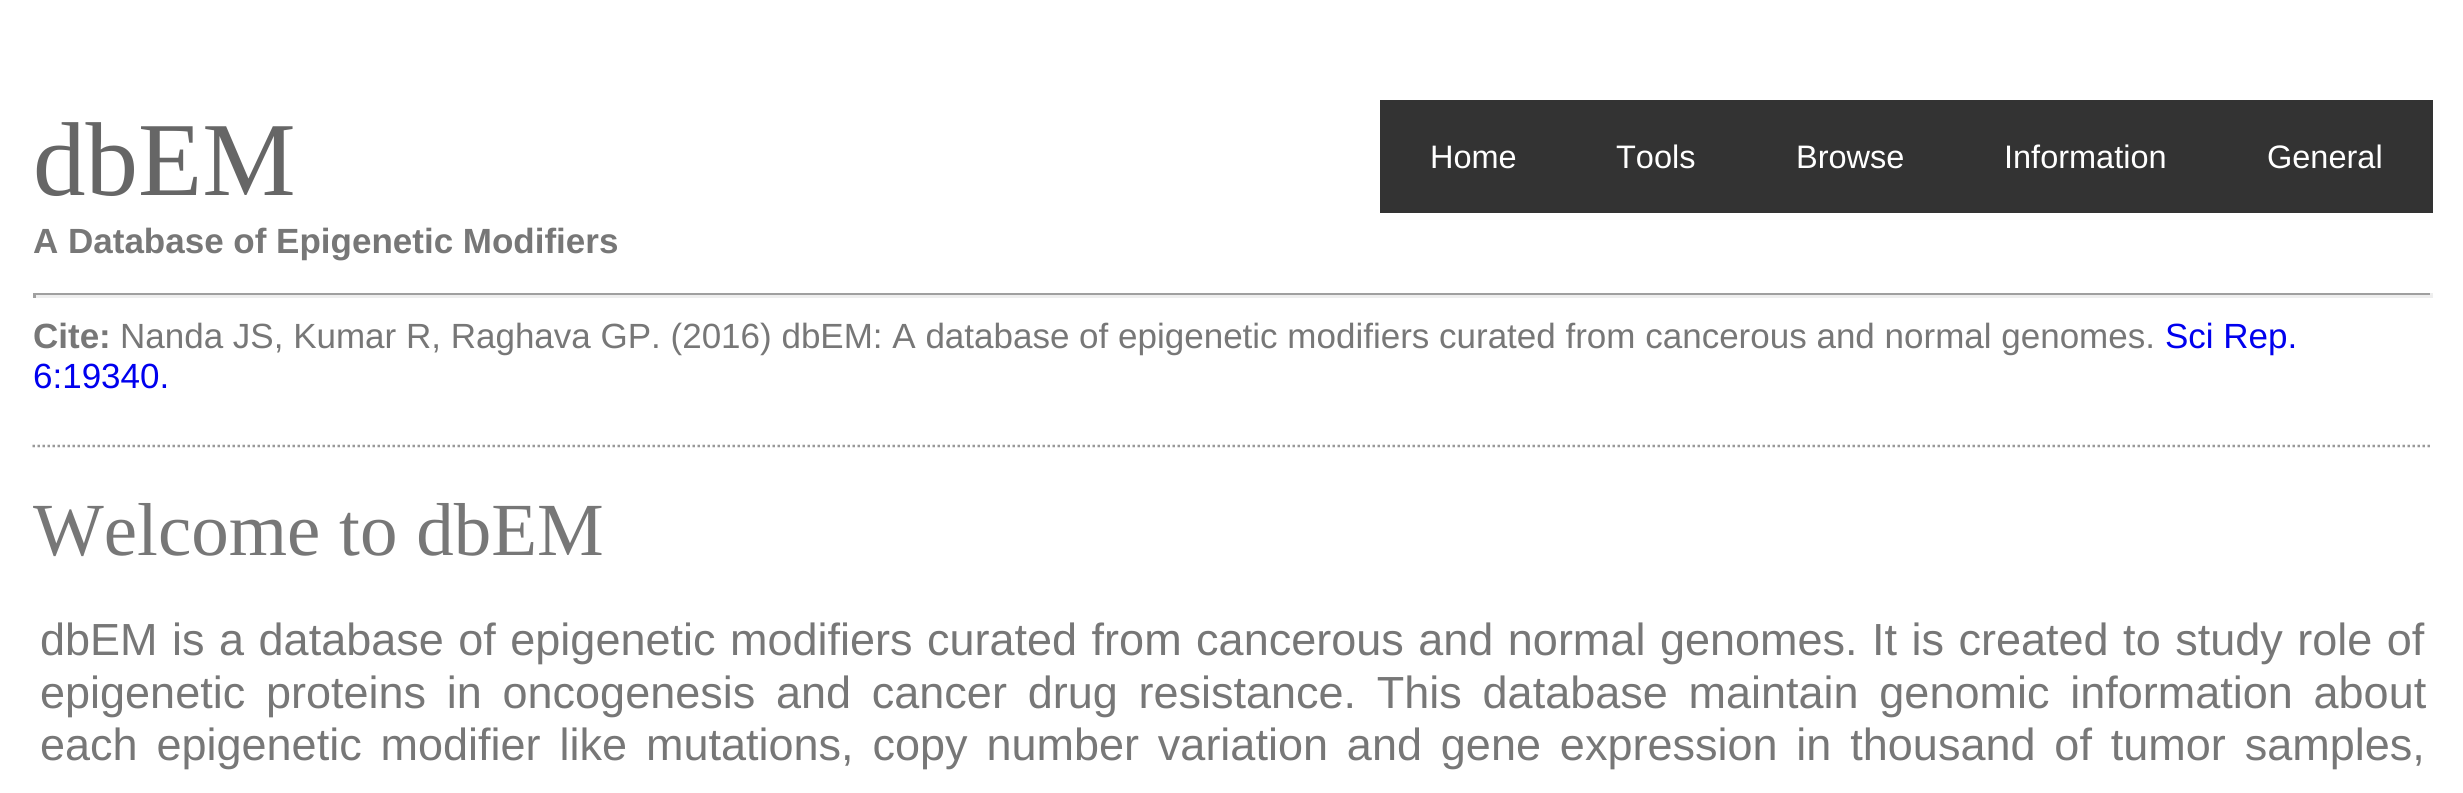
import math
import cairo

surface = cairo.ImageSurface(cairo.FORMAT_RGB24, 2463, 793)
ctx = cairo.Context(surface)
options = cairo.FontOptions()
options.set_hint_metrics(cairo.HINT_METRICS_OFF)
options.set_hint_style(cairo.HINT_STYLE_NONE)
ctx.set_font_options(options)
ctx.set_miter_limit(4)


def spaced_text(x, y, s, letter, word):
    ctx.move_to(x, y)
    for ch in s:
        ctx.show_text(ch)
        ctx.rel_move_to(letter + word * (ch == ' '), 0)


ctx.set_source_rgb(1, 1, 1)
ctx.paint()
ctx.new_path()
ctx.move_to(32.5, 446)
ctx.line_to(2432.5, 446)
ctx.set_source_rgb(0.6, 0.6, 0.6)
ctx.set_line_width(2.5)
ctx.set_dash([2.5, 2.5])
ctx.stroke()
ctx.select_font_face("Liberation Serif")
ctx.set_font_size(105)
ctx.set_source_rgb(0.4, 0.4, 0.4)
ctx.move_to(33, 195)
ctx.show_text("dbEM")
ctx.select_font_face("Liberation Sans", cairo.FONT_SLANT_NORMAL, cairo.FONT_WEIGHT_BOLD)
ctx.set_font_size(35)
ctx.set_source_rgb(0.467, 0.467, 0.467)
ctx.move_to(33, 253)
ctx.show_text("A Database of Epigenetic Modifiers")
ctx.set_source_rgb(0.2, 0.2, 0.2)
ctx.rectangle(1380, 100, 1053, 113)
ctx.fill()
ctx.select_font_face("Liberation Sans")
ctx.set_font_size(32.5)
ctx.set_source_rgb(1, 1, 1)
ctx.move_to(1430, 168)
ctx.show_text("Home")
ctx.move_to(1616, 168)
ctx.show_text("Tools")
ctx.move_to(1796, 168)
ctx.show_text("Browse")
ctx.move_to(2004, 168)
ctx.show_text("Information")
ctx.move_to(2267, 168)
ctx.show_text("General")
ctx.set_source_rgb(0.624, 0.624, 0.624)
ctx.rectangle(33, 293, 2400, 2)
ctx.fill()
ctx.set_source_rgb(0.933, 0.933, 0.933)
ctx.rectangle(2430, 293, 3, 5)
ctx.fill()
ctx.rectangle(33, 295, 2400, 3)
ctx.fill()
ctx.set_source_rgb(0.624, 0.624, 0.624)
ctx.rectangle(33, 293, 3, 5)
ctx.fill()
ctx.select_font_face("Liberation Sans", cairo.FONT_SLANT_NORMAL, cairo.FONT_WEIGHT_BOLD)
ctx.set_font_size(35)
ctx.set_source_rgb(0.467, 0.467, 0.467)
ctx.move_to(33, 348)
ctx.show_text("Cite:")
ctx.select_font_face("Liberation Sans")
ctx.move_to(120, 348)
ctx.show_text("Nanda JS, Kumar R, Raghava GP. (2016) dbEM: A database of epigenetic modifiers curated from cancerous and normal genomes.")
ctx.set_source_rgb(0, 0, 0.933)
ctx.move_to(2165, 348)
ctx.show_text("Sci Rep.")
ctx.move_to(33, 388)
ctx.show_text("6:19340.")
ctx.select_font_face("Liberation Serif")
ctx.set_font_size(75)
ctx.set_source_rgb(0.467, 0.467, 0.467)
ctx.move_to(33, 555)
ctx.show_text("Welcome to dbEM")
ctx.select_font_face("Liberation Sans")
ctx.set_font_size(45)
spaced_text(40, 655, "dbEM is a database of epigenetic modifiers curated from cancerous and normal genomes. It is created to study role of", 0, 2)
spaced_text(40, 708, "epigenetic proteins in oncogenesis and cancer drug resistance. This database maintain genomic information about", 0, 8.25)
spaced_text(40, 760, "each epigenetic modifier like mutations, copy number variation and gene expression in thousand of tumor samples,", 0, 6.4)
surface.write_to_png("page.png")
